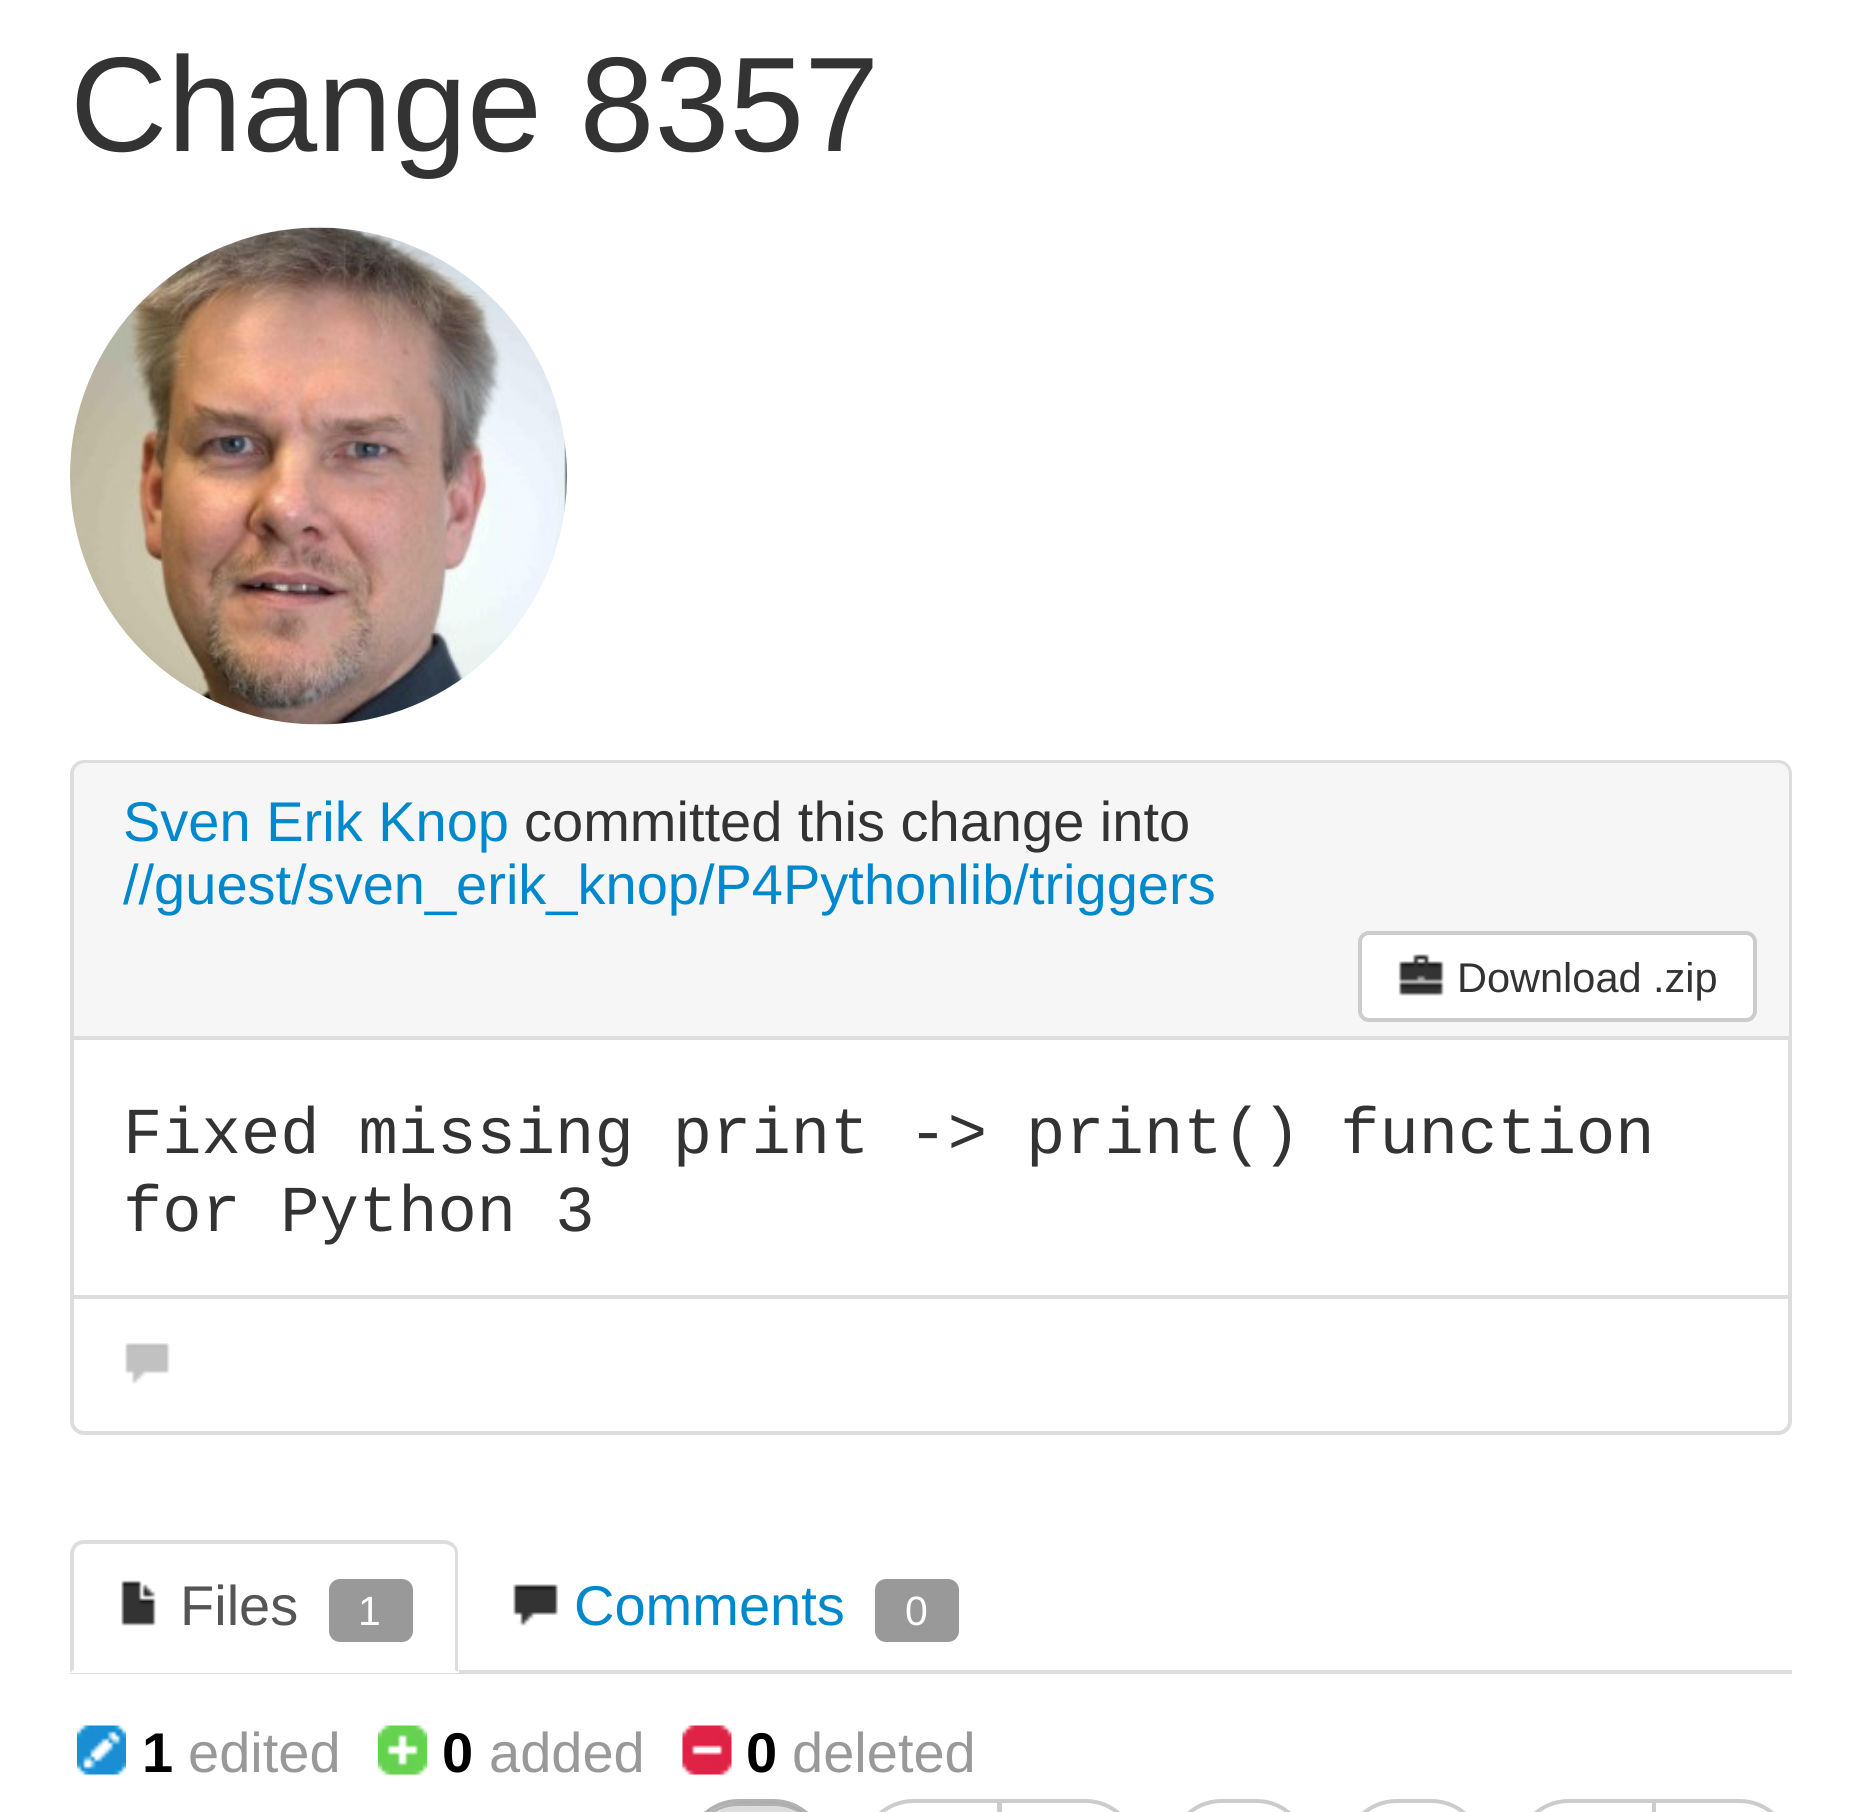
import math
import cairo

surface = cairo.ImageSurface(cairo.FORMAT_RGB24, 1861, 1812)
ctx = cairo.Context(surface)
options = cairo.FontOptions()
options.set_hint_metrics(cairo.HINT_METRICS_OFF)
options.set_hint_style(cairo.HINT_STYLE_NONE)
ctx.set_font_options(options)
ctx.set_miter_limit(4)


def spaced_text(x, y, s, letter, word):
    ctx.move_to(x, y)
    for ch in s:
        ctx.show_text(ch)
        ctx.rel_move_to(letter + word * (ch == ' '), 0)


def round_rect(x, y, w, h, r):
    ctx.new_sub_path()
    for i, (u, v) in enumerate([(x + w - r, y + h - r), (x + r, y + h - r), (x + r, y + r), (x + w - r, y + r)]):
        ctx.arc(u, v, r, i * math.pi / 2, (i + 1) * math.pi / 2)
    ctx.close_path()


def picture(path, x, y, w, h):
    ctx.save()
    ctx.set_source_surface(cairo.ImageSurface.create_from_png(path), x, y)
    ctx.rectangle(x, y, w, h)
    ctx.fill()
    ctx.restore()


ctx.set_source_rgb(1, 1, 1)
ctx.paint()
ctx.select_font_face("Arimo")
ctx.set_font_size(134.75)
ctx.set_source_rgb(0.2, 0.2, 0.2)
ctx.move_to(70, 151)
ctx.show_text("Change 8357")
picture("img1.png", 70, 227, 497, 498)
round_rect(72, 762, 1718, 671, 12)
ctx.set_source_rgb(0.867, 0.867, 0.867)
ctx.set_line_width(4)
ctx.stroke()
ctx.set_source_rgb(0.961, 0.961, 0.961)
ctx.new_path()
ctx.move_to(85, 763)
ctx.line_to(1778, 763)
ctx.curve_to(1784, 763, 1789, 768, 1789, 774)
ctx.line_to(1789, 1040)
ctx.line_to(74, 1040)
ctx.line_to(74, 774)
ctx.curve_to(74, 768, 79, 763, 85, 763)
ctx.close_path()
ctx.fill()
ctx.set_source_rgb(0.867, 0.867, 0.867)
ctx.rectangle(74, 1036, 1715, 4)
ctx.fill()
ctx.set_font_size(56)
ctx.set_source_rgb(0, 0.533, 0.8)
ctx.move_to(123, 841)
ctx.show_text("Sven Erik Knop")
ctx.set_source_rgb(0.2, 0.2, 0.2)
ctx.move_to(524, 841)
ctx.show_text("committed this change into")
ctx.set_source_rgb(0, 0.533, 0.8)
ctx.move_to(123, 904)
ctx.show_text("//guest/sven_erik_knop/P4Pythonlib/triggers")
ctx.set_source_rgb(1, 1, 1)
round_rect(1358, 931, 399, 91, 11)
ctx.fill()
round_rect(1360, 933, 395, 87, 9)
ctx.set_source_rgba(0, 0, 0, 0.2)
ctx.stroke()
picture("img2.png", 1398, 954, 46, 42)
ctx.set_font_size(41.5)
ctx.set_source_rgb(0.2, 0.2, 0.2)
ctx.move_to(1457, 992)
ctx.show_text("Download .zip")
ctx.select_font_face("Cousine")
ctx.set_font_size(65.5)
spaced_text(123, 1153, "Fixed missing print -> print() function", 0, -0.25)
ctx.move_to(123, 1231)
ctx.show_text("for Python 3")
ctx.set_source_rgb(0.867, 0.867, 0.867)
ctx.rectangle(74, 1295, 1715, 4)
ctx.fill()
picture("img3.png", 125, 1343, 45, 41)
ctx.rectangle(70, 1670, 1722, 4)
ctx.fill()
ctx.set_source_rgb(1, 1, 1)
ctx.new_path()
ctx.move_to(84, 1540)
ctx.line_to(445, 1540)
ctx.curve_to(452.5, 1540, 459, 1546.5, 459, 1554)
ctx.line_to(459, 1673)
ctx.line_to(70, 1673)
ctx.line_to(70, 1554)
ctx.curve_to(70, 1546.5, 76.5, 1540, 84, 1540)
ctx.close_path()
ctx.fill()
ctx.set_source_rgb(0.867, 0.867, 0.867)
ctx.new_path()
ctx.move_to(84, 1540)
ctx.curve_to(80, 1540, 76, 1542, 74, 1544)
ctx.line_to(77, 1547)
ctx.curve_to(78, 1545, 81, 1544, 84, 1544)
ctx.line_to(444, 1544)
ctx.curve_to(447, 1544, 450, 1545, 452, 1547)
ctx.line_to(454, 1544)
ctx.curve_to(452, 1542, 448, 1540, 444, 1540)
ctx.close_path()
ctx.fill()
ctx.new_path()
ctx.move_to(454, 1544)
ctx.curve_to(457, 1547, 458, 1550, 458, 1554)
ctx.line_to(458, 1672)
ctx.line_to(455, 1670)
ctx.line_to(455, 1554)
ctx.curve_to(455, 1551, 454, 1548, 452, 1547)
ctx.close_path()
ctx.fill()
ctx.new_path()
ctx.move_to(70, 1673)
ctx.line_to(74, 1669)
ctx.line_to(74, 1554)
ctx.curve_to(74, 1551, 75, 1548, 77, 1547)
ctx.line_to(74, 1544)
ctx.curve_to(72, 1546, 70, 1550, 70, 1554)
ctx.close_path()
ctx.fill()
picture("img4.png", 121, 1580, 35, 46)
ctx.select_font_face("Arimo")
ctx.set_font_size(56)
ctx.set_source_rgb(0.333, 0.333, 0.333)
ctx.move_to(180, 1625)
ctx.show_text("Files")
ctx.set_source_rgb(0.6, 0.6, 0.6)
round_rect(329, 1579, 84, 63, 11)
ctx.fill()
ctx.set_font_size(41)
ctx.set_source_rgb(1, 1, 1)
ctx.move_to(358, 1625)
ctx.show_text("1")
picture("img5.png", 513, 1584, 45, 42)
ctx.set_font_size(56)
ctx.set_source_rgb(0, 0.533, 0.8)
ctx.move_to(574, 1625)
ctx.show_text("Comments")
ctx.set_source_rgb(0.6, 0.6, 0.6)
round_rect(875, 1579, 84, 63, 11)
ctx.fill()
ctx.set_font_size(41)
ctx.set_source_rgb(1, 1, 1)
ctx.move_to(905, 1625)
ctx.show_text("0")
picture("img6.png", 77, 1725, 49, 50)
ctx.select_font_face("Arimo", cairo.FONT_SLANT_NORMAL, cairo.FONT_WEIGHT_BOLD)
ctx.set_font_size(56)
ctx.set_source_rgb(0, 0, 0)
ctx.move_to(142, 1772)
ctx.show_text("1")
ctx.select_font_face("Arimo")
ctx.set_source_rgb(0.6, 0.6, 0.6)
ctx.move_to(188, 1772)
ctx.show_text("edited")
picture("img7.png", 378, 1725, 49, 50)
ctx.select_font_face("Arimo", cairo.FONT_SLANT_NORMAL, cairo.FONT_WEIGHT_BOLD)
ctx.set_source_rgb(0, 0, 0)
ctx.move_to(442, 1772)
ctx.show_text("0")
ctx.select_font_face("Arimo")
ctx.set_source_rgb(0.6, 0.6, 0.6)
ctx.move_to(489, 1772)
ctx.show_text("added")
picture("img8.png", 682, 1725, 50, 50)
ctx.select_font_face("Arimo", cairo.FONT_SLANT_NORMAL, cairo.FONT_WEIGHT_BOLD)
ctx.set_source_rgb(0, 0, 0)
ctx.move_to(746, 1772)
ctx.show_text("0")
ctx.select_font_face("Arimo")
ctx.set_source_rgb(0.6, 0.6, 0.6)
ctx.move_to(792, 1772)
ctx.show_text("deleted")
ctx.set_source_rgb(0.867, 0.867, 0.867)
round_rect(686, 1799, 140, 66, 52.5)
ctx.fill()
ctx.set_source_rgb(0.694, 0.694, 0.694)
ctx.new_path()
ctx.move_to(738, 1806)
ctx.line_to(774, 1806)
ctx.curve_to(801, 1806, 822, 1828, 822, 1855)
ctx.curve_to(822, 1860, 821, 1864, 820, 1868)
ctx.curve_to(830, 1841, 813, 1810, 784, 1804)
ctx.curve_to(775, 1802, 765, 1803, 756, 1803)
ctx.curve_to(748, 1803, 738, 1802, 729, 1804)
ctx.curve_to(706, 1809, 689, 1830, 690, 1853)
ctx.curve_to(691, 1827, 712, 1806, 738, 1806)
ctx.close_path()
ctx.fill()
round_rect(688, 1801, 136, 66, 50.5)
ctx.set_source_rgba(0, 0, 0, 0.2)
ctx.stroke()
ctx.new_path()
ctx.move_to(913.5, 1801)
ctx.line_to(999, 1801)
ctx.line_to(999, 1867)
ctx.line_to(913.5, 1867)
ctx.curve_to(885.5, 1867, 863, 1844.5, 863, 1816.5)
ctx.line_to(863, 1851.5)
ctx.curve_to(863, 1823.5, 885.5, 1801, 913.5, 1801)
ctx.close_path()
ctx.set_source_rgb(0.8, 0.8, 0.8)
ctx.stroke()
ctx.set_source_rgb(1, 1, 1)
ctx.new_path()
ctx.move_to(1000, 1801)
ctx.line_to(1085.5, 1801)
ctx.curve_to(1113.5, 1801, 1136, 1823.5, 1136, 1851.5)
ctx.line_to(1136, 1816.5)
ctx.curve_to(1136, 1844.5, 1113.5, 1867, 1085.5, 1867)
ctx.line_to(1000, 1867)
ctx.close_path()
ctx.fill_preserve()
ctx.set_source_rgb(0.8, 0.8, 0.8)
ctx.stroke()
round_rect(1171, 1801, 136, 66, 50.5)
ctx.stroke()
round_rect(1346, 1801, 136, 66, 50.5)
ctx.stroke()
ctx.new_path()
ctx.move_to(1568.5, 1801)
ctx.line_to(1654, 1801)
ctx.line_to(1654, 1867)
ctx.line_to(1568.5, 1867)
ctx.curve_to(1540.5, 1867, 1518, 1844.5, 1518, 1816.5)
ctx.line_to(1518, 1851.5)
ctx.curve_to(1518, 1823.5, 1540.5, 1801, 1568.5, 1801)
ctx.close_path()
ctx.stroke()
ctx.set_source_rgb(1, 1, 1)
ctx.new_path()
ctx.move_to(1654, 1801)
ctx.line_to(1739.5, 1801)
ctx.curve_to(1767.5, 1801, 1790, 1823.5, 1790, 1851.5)
ctx.line_to(1790, 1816.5)
ctx.curve_to(1790, 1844.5, 1767.5, 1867, 1739.5, 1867)
ctx.line_to(1654, 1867)
ctx.close_path()
ctx.fill_preserve()
ctx.set_source_rgb(0.8, 0.8, 0.8)
ctx.stroke()
surface.write_to_png("page.png")
